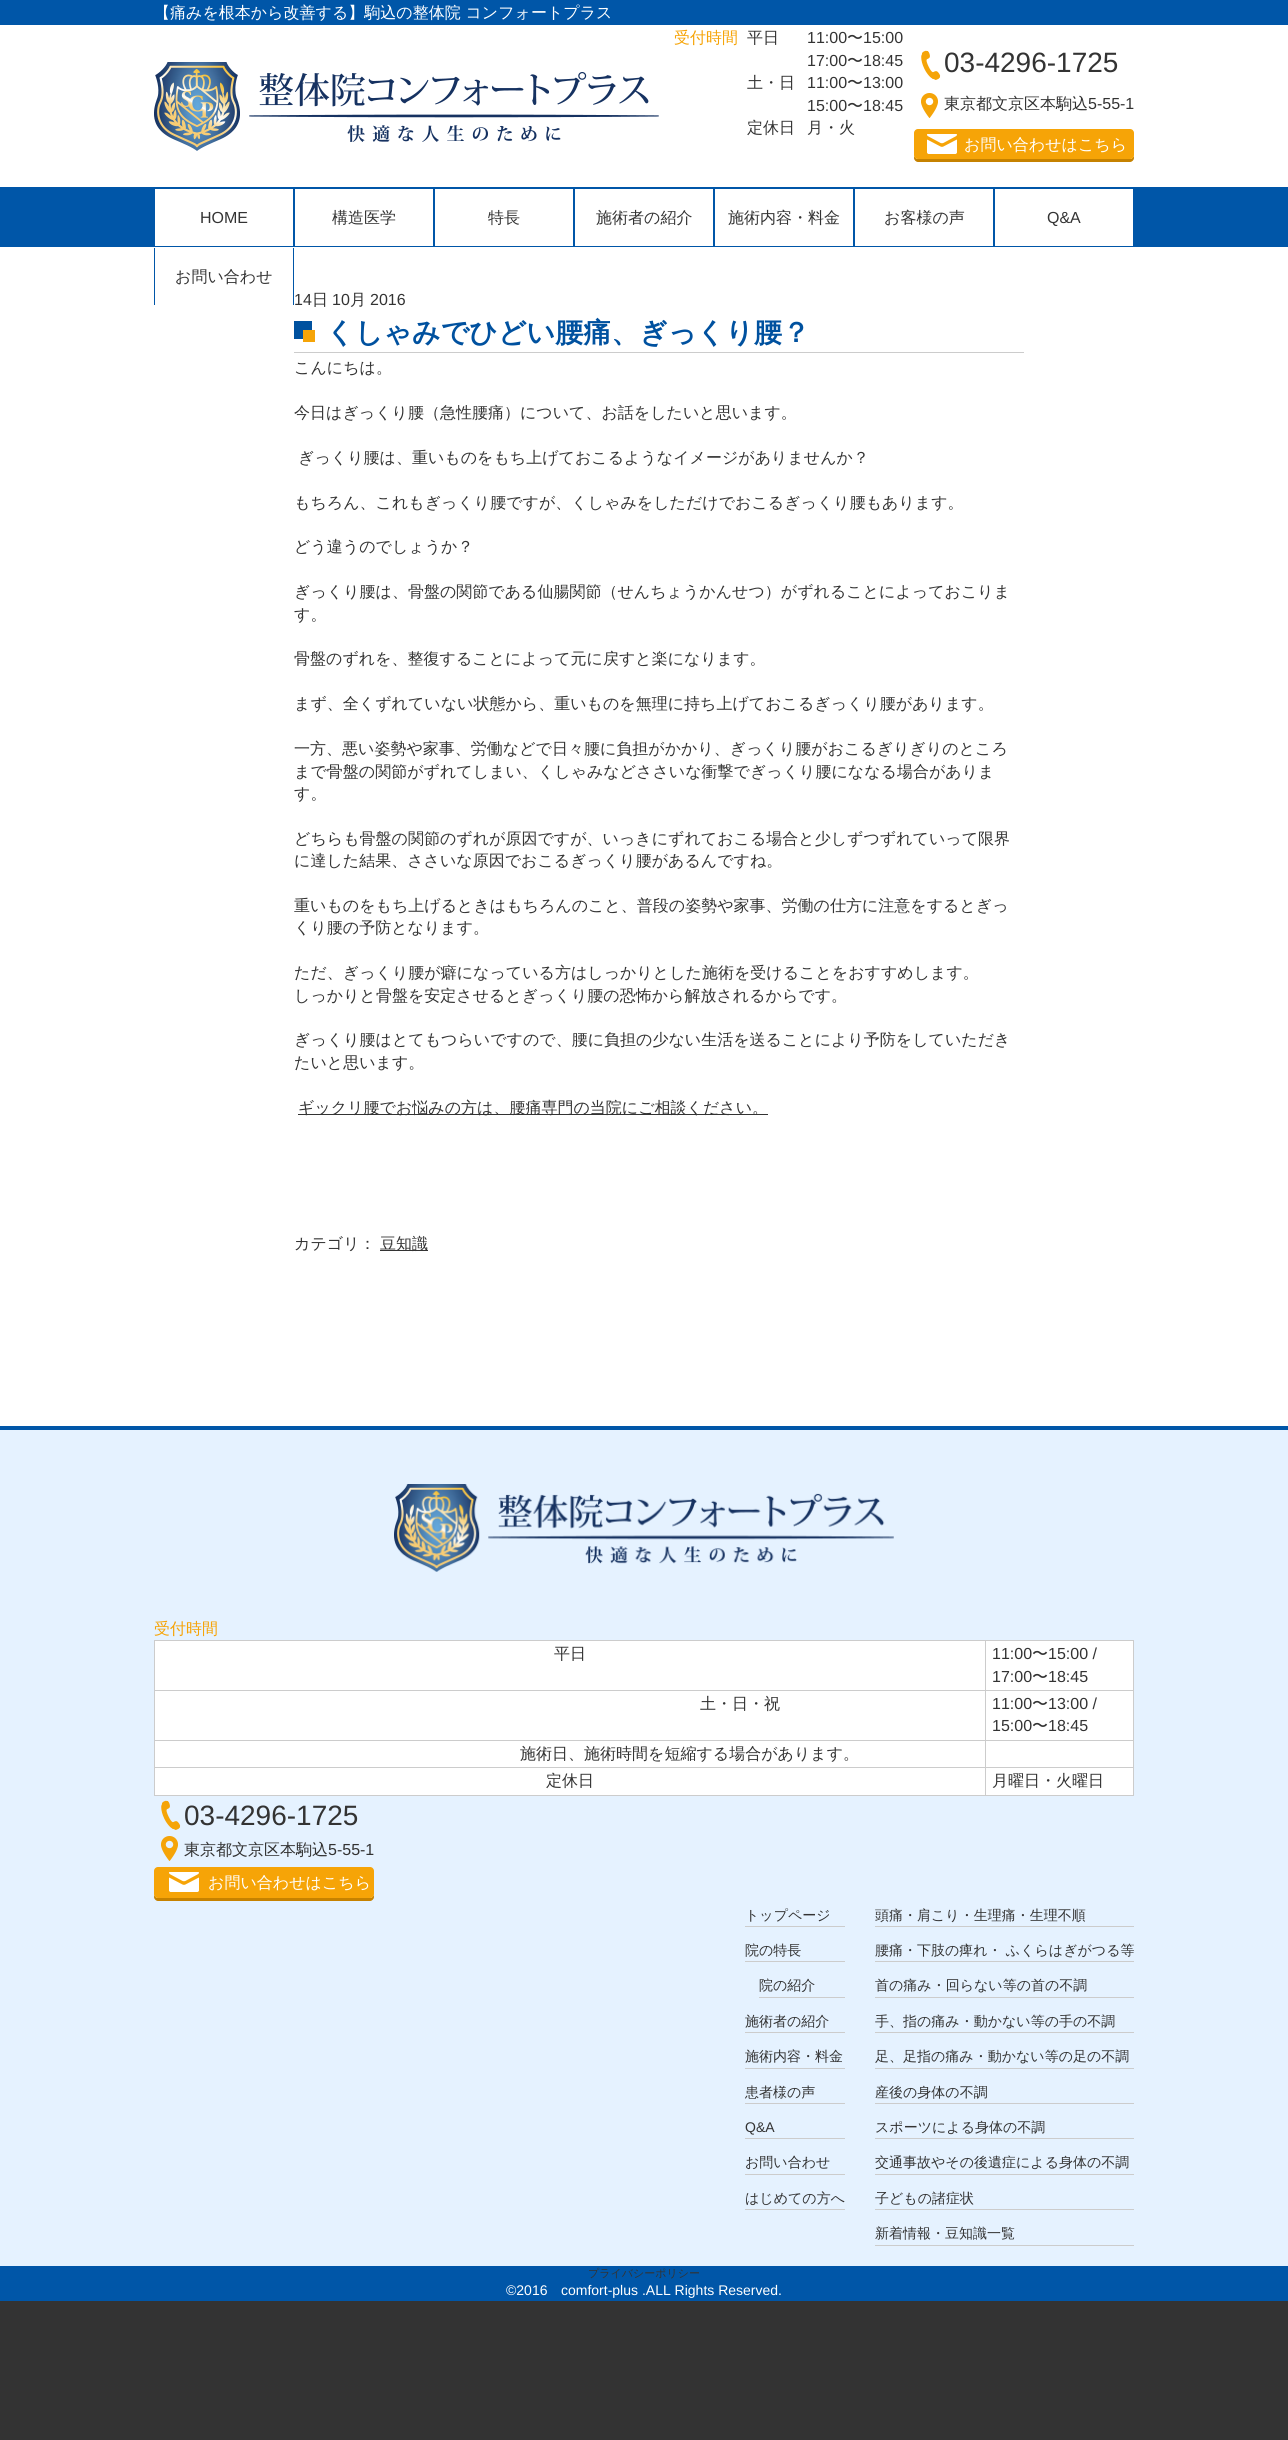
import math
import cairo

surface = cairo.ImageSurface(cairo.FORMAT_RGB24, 1288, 2440)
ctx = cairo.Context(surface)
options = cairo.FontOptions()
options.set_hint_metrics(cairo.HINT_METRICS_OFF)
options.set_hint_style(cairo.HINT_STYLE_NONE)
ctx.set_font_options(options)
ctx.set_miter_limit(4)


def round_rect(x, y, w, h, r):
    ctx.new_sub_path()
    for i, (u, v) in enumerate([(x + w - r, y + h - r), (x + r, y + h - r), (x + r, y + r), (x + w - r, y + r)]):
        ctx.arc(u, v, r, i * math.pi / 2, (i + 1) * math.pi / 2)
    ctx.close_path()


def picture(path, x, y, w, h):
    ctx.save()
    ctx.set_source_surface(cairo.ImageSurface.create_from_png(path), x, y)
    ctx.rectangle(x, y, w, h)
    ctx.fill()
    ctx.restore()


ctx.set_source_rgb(0.2, 0.2, 0.2)
ctx.paint()
ctx.set_source_rgb(1, 1, 1)
ctx.rectangle(0, 25, 1288, 1401)
ctx.fill()
ctx.set_source_rgb(0, 0.337, 0.659)
ctx.rectangle(0, 0, 1288, 25)
ctx.fill()
ctx.select_font_face("WenQuanYi Zen Hei Medium")
ctx.set_font_size(16)
ctx.set_source_rgb(1, 1, 1)
ctx.move_to(154, 18)
ctx.show_text("【痛みを根本から改善する】駒込の整体院 コンフォートプラス")
picture("img1.png", 154, 62, 505, 89)
ctx.set_source_rgb(0.961, 0.643, 0.031)
ctx.move_to(674, 43)
ctx.show_text("受付時間")
ctx.set_source_rgb(0.2, 0.2, 0.2)
ctx.move_to(747, 43)
ctx.show_text("平日")
ctx.select_font_face("Liberation Sans")
ctx.move_to(807, 43)
ctx.show_text("11:00")
ctx.select_font_face("WenQuanYi Zen Hei Medium")
ctx.move_to(847, 43)
ctx.show_text("〜")
ctx.select_font_face("Liberation Sans")
ctx.move_to(863, 43)
ctx.show_text("15:00")
ctx.move_to(807, 66)
ctx.show_text("17:00")
ctx.select_font_face("WenQuanYi Zen Hei Medium")
ctx.move_to(847, 66)
ctx.show_text("〜")
ctx.select_font_face("Liberation Sans")
ctx.move_to(863, 66)
ctx.show_text("18:45")
ctx.select_font_face("WenQuanYi Zen Hei Medium")
ctx.move_to(747, 88)
ctx.show_text("土・日")
ctx.select_font_face("Liberation Sans")
ctx.move_to(807, 88)
ctx.show_text("11:00")
ctx.select_font_face("WenQuanYi Zen Hei Medium")
ctx.move_to(847, 88)
ctx.show_text("〜")
ctx.select_font_face("Liberation Sans")
ctx.move_to(863, 88)
ctx.show_text("13:00")
ctx.move_to(807, 111)
ctx.show_text("15:00")
ctx.select_font_face("WenQuanYi Zen Hei Medium")
ctx.move_to(847, 111)
ctx.show_text("〜")
ctx.select_font_face("Liberation Sans")
ctx.move_to(863, 111)
ctx.show_text("18:45")
ctx.select_font_face("WenQuanYi Zen Hei Medium")
ctx.move_to(747, 133)
ctx.show_text("定休日")
ctx.move_to(807, 133)
ctx.show_text("月・火")
picture("img2.png", 921, 50, 20, 30)
ctx.select_font_face("Liberation Sans")
ctx.set_font_size(28)
ctx.move_to(944, 72)
ctx.show_text("03-4296-1725")
picture("img3.png", 921, 93, 17, 25)
ctx.select_font_face("WenQuanYi Zen Hei Medium")
ctx.set_font_size(16)
ctx.move_to(944, 109)
ctx.show_text("東京都文京区本駒込")
ctx.select_font_face("Liberation Sans")
ctx.move_to(1088, 109)
ctx.show_text("5-55-1")
ctx.set_source_rgb(0.776, 0.51, 0)
ctx.new_path()
ctx.move_to(914, 155)
ctx.line_to(914, 158)
ctx.curve_to(914, 160, 916, 162, 918, 162)
ctx.line_to(1130, 162)
ctx.curve_to(1132, 162, 1134, 160, 1134, 158)
ctx.line_to(1134, 155)
ctx.curve_to(1134, 157, 1132, 159, 1130, 159)
ctx.line_to(918, 159)
ctx.curve_to(916, 159, 914, 157, 914, 155)
ctx.close_path()
ctx.fill()
ctx.set_source_rgb(0.961, 0.643, 0.031)
round_rect(914, 129, 220, 30, 4)
ctx.fill()
picture("img4.png", 927, 134, 30, 20)
ctx.select_font_face("WenQuanYi Zen Hei Medium")
ctx.set_source_rgb(1, 1, 1)
ctx.move_to(964, 150)
ctx.show_text("お問い合わせはこちら")
ctx.set_source_rgb(0, 0.337, 0.659)
ctx.rectangle(0, 187, 1288, 60)
ctx.fill()
ctx.set_source_rgb(1, 1, 1)
ctx.rectangle(155, 189, 138, 57)
ctx.fill()
ctx.select_font_face("Liberation Sans")
ctx.set_source_rgb(0.2, 0.2, 0.2)
ctx.move_to(200, 223)
ctx.show_text("HOME")
ctx.set_source_rgb(1, 1, 1)
ctx.rectangle(295, 189, 138, 57)
ctx.fill()
ctx.select_font_face("WenQuanYi Zen Hei Medium")
ctx.set_source_rgb(0.2, 0.2, 0.2)
ctx.move_to(332, 223)
ctx.show_text("構造医学")
ctx.set_source_rgb(1, 1, 1)
ctx.rectangle(435, 189, 138, 57)
ctx.fill()
ctx.set_source_rgb(0.2, 0.2, 0.2)
ctx.move_to(488, 223)
ctx.show_text("特長")
ctx.set_source_rgb(1, 1, 1)
ctx.rectangle(575, 189, 138, 57)
ctx.fill()
ctx.set_source_rgb(0.2, 0.2, 0.2)
ctx.move_to(596, 223)
ctx.show_text("施術者の紹介")
ctx.set_source_rgb(1, 1, 1)
ctx.rectangle(715, 189, 138, 57)
ctx.fill()
ctx.set_source_rgb(0.2, 0.2, 0.2)
ctx.move_to(728, 223)
ctx.show_text("施術内容・料金")
ctx.set_source_rgb(1, 1, 1)
ctx.rectangle(855, 189, 138, 57)
ctx.fill()
ctx.set_source_rgb(0.2, 0.2, 0.2)
ctx.move_to(884, 223)
ctx.show_text("お客様の声")
ctx.set_source_rgb(1, 1, 1)
ctx.rectangle(995, 189, 138, 57)
ctx.fill()
ctx.select_font_face("Liberation Sans")
ctx.set_source_rgb(0.2, 0.2, 0.2)
ctx.move_to(1047, 223)
ctx.show_text("Q&A")
ctx.set_source_rgb(0, 0.337, 0.659)
ctx.rectangle(293, 248, 1, 57)
ctx.fill()
ctx.rectangle(154, 248, 1, 57)
ctx.fill()
ctx.select_font_face("WenQuanYi Zen Hei Medium")
ctx.set_source_rgb(0.2, 0.2, 0.2)
ctx.move_to(175, 282)
ctx.show_text("お問い合わせ")
ctx.select_font_face("Liberation Sans")
ctx.move_to(294, 305)
ctx.show_text("14")
ctx.select_font_face("WenQuanYi Zen Hei Medium")
ctx.move_to(312, 305)
ctx.show_text("日")
ctx.select_font_face("Liberation Sans")
ctx.move_to(332, 305)
ctx.show_text("10")
ctx.select_font_face("WenQuanYi Zen Hei Medium")
ctx.move_to(350, 305)
ctx.show_text("月")
ctx.select_font_face("Liberation Sans")
ctx.move_to(370, 305)
ctx.show_text("2016")
ctx.set_source_rgb(0.8, 0.8, 0.8)
ctx.rectangle(294, 352, 730, 1)
ctx.fill()
picture("img5.png", 294, 321, 21, 21)
ctx.select_font_face("WenQuanYi Zen Hei", cairo.FONT_SLANT_NORMAL, cairo.FONT_WEIGHT_BOLD)
ctx.set_font_size(28)
ctx.set_source_rgb(0, 0.318, 0.624)
ctx.move_to(326, 342)
ctx.show_text("くしゃみでひどい腰痛、ぎっくり腰？")
ctx.select_font_face("WenQuanYi Zen Hei Medium")
ctx.set_font_size(16)
ctx.set_source_rgb(0.2, 0.2, 0.2)
ctx.move_to(294, 373)
ctx.show_text("こんにちは。")
ctx.move_to(294, 418)
ctx.show_text("今日はぎっくり腰（急性腰痛）について、お話をしたいと思います。")
ctx.move_to(298, 463)
ctx.show_text("ぎっくり腰は、重いものをもち上げておこるようなイメージがありませんか？")
ctx.move_to(294, 508)
ctx.show_text("もちろん、これもぎっくり腰ですが、くしゃみをしただけでおこるぎっくり腰もあります。")
ctx.move_to(294, 552)
ctx.show_text("どう違うのでしょうか？")
ctx.move_to(294, 597)
ctx.show_text("ぎっくり腰は、骨盤の関節である仙腸関節（せんちょうかんせつ）がずれることによっておこりま")
ctx.move_to(294, 620)
ctx.show_text("す。")
ctx.move_to(294, 664)
ctx.show_text("骨盤のずれを、整復することによって元に戻すと楽になります。")
ctx.move_to(294, 709)
ctx.show_text("まず、全くずれていない状態から、重いものを無理に持ち上げておこるぎっくり腰があります。")
ctx.move_to(294, 754)
ctx.show_text("一方、悪い姿勢や家事、労働などで日々腰に負担がかかり、ぎっくり腰がおこるぎりぎりのところ")
ctx.move_to(294, 777)
ctx.show_text("まで骨盤の関節がずれてしまい、くしゃみなどささいな衝撃でぎっくり腰にななる場合がありま")
ctx.move_to(294, 799)
ctx.show_text("す。")
ctx.move_to(294, 844)
ctx.show_text("どちらも骨盤の関節のずれが原因ですが、いっきにずれておこる場合と少しずつずれていって限界")
ctx.move_to(294, 866)
ctx.show_text("に達した結果、ささいな原因でおこるぎっくり腰があるんですね。")
ctx.move_to(294, 911)
ctx.show_text("重いものをもち上げるときはもちろんのこと、普段の姿勢や家事、労働の仕方に注意をするとぎっ")
ctx.move_to(294, 933)
ctx.show_text("くり腰の予防となります。")
ctx.move_to(294, 978)
ctx.show_text("ただ、ぎっくり腰が癖になっている方はしっかりとした施術を受けることをおすすめします。")
ctx.move_to(294, 1001)
ctx.show_text("しっかりと骨盤を安定させるとぎっくり腰の恐怖から解放されるからです。")
ctx.move_to(294, 1045)
ctx.show_text("ぎっくり腰はとてもつらいですので、腰に負担の少ない生活を送ることにより予防をしていただき")
ctx.move_to(294, 1068)
ctx.show_text("たいと思います。")
ctx.rectangle(298, 1114, 470, 1)
ctx.fill()
ctx.move_to(298, 1113)
ctx.show_text("ギックリ腰でお悩みの方は、腰痛専門の当院にご相談ください。")
ctx.move_to(294, 1249)
ctx.show_text("カテゴリ：")
ctx.rectangle(380, 1250, 48, 1)
ctx.fill()
ctx.move_to(380, 1249)
ctx.show_text("豆知識")
ctx.set_source_rgb(0.898, 0.949, 1)
ctx.rectangle(0, 1430, 1288, 836)
ctx.fill()
ctx.set_source_rgb(0, 0.337, 0.659)
ctx.rectangle(0, 1426, 1288, 4)
ctx.fill()
picture("img6.png", 394, 1484, 500, 88)
ctx.set_source_rgb(0.961, 0.643, 0.031)
ctx.move_to(154, 1634)
ctx.show_text("受付時間")
ctx.set_source_rgb(1, 1, 1)
ctx.rectangle(155, 1641, 978, 154)
ctx.fill()
ctx.set_source_rgb(0.8, 0.8, 0.8)
ctx.rectangle(154, 1640, 980, 1)
ctx.fill()
ctx.rectangle(1133, 1640, 1, 156)
ctx.fill()
ctx.rectangle(154, 1795, 980, 1)
ctx.fill()
ctx.rectangle(154, 1640, 1, 156)
ctx.fill()
ctx.set_source_rgb(0.2, 0.2, 0.2)
ctx.move_to(554, 1659)
ctx.show_text("平日")
ctx.select_font_face("Liberation Sans")
ctx.move_to(992, 1659)
ctx.show_text("11:00")
ctx.select_font_face("WenQuanYi Zen Hei Medium")
ctx.move_to(1032, 1659)
ctx.show_text("〜")
ctx.select_font_face("Liberation Sans")
ctx.move_to(1048, 1659)
ctx.show_text("15:00 /")
ctx.move_to(992, 1682)
ctx.show_text("17:00")
ctx.select_font_face("WenQuanYi Zen Hei Medium")
ctx.move_to(1032, 1682)
ctx.show_text("〜")
ctx.select_font_face("Liberation Sans")
ctx.move_to(1048, 1682)
ctx.show_text("18:45")
ctx.set_source_rgb(0.8, 0.8, 0.8)
ctx.rectangle(154, 1690, 980, 1)
ctx.fill()
ctx.select_font_face("WenQuanYi Zen Hei Medium")
ctx.set_source_rgb(0.2, 0.2, 0.2)
ctx.move_to(700, 1709)
ctx.show_text("土・日・祝")
ctx.select_font_face("Liberation Sans")
ctx.move_to(992, 1709)
ctx.show_text("11:00")
ctx.select_font_face("WenQuanYi Zen Hei Medium")
ctx.move_to(1032, 1709)
ctx.show_text("〜")
ctx.select_font_face("Liberation Sans")
ctx.move_to(1048, 1709)
ctx.show_text("13:00 /")
ctx.move_to(992, 1731)
ctx.show_text("15:00")
ctx.select_font_face("WenQuanYi Zen Hei Medium")
ctx.move_to(1032, 1731)
ctx.show_text("〜")
ctx.select_font_face("Liberation Sans")
ctx.move_to(1048, 1731)
ctx.show_text("18:45")
ctx.set_source_rgb(0.8, 0.8, 0.8)
ctx.rectangle(154, 1740, 980, 1)
ctx.fill()
ctx.select_font_face("WenQuanYi Zen Hei Medium")
ctx.set_source_rgb(0.2, 0.2, 0.2)
ctx.move_to(520, 1759)
ctx.show_text("施術日、施術時間を短縮する場合があります。")
ctx.set_source_rgb(0.8, 0.8, 0.8)
ctx.rectangle(154, 1767, 980, 1)
ctx.fill()
ctx.rectangle(985, 1640, 1, 156)
ctx.fill()
ctx.set_source_rgb(0.2, 0.2, 0.2)
ctx.move_to(546, 1786)
ctx.show_text("定休日")
ctx.move_to(992, 1786)
ctx.show_text("月曜日・火曜日")
picture("img7.png", 161, 1800, 20, 30)
ctx.select_font_face("Liberation Sans")
ctx.set_font_size(28)
ctx.move_to(184, 1825)
ctx.show_text("03-4296-1725")
picture("img8.png", 161, 1836, 17, 25)
ctx.select_font_face("WenQuanYi Zen Hei Medium")
ctx.set_font_size(16)
ctx.move_to(184, 1855)
ctx.show_text("東京都文京区本駒込")
ctx.select_font_face("Liberation Sans")
ctx.move_to(328, 1855)
ctx.show_text("5-55-1")
ctx.set_source_rgb(0.776, 0.51, 0)
ctx.new_path()
ctx.move_to(154, 1894)
ctx.line_to(154, 1897)
ctx.curve_to(154, 1899, 156, 1901, 158, 1901)
ctx.line_to(370, 1901)
ctx.curve_to(372, 1901, 374, 1899, 374, 1897)
ctx.line_to(374, 1894)
ctx.curve_to(374, 1896, 372, 1898, 370, 1898)
ctx.line_to(158, 1898)
ctx.curve_to(156, 1898, 154, 1896, 154, 1894)
ctx.close_path()
ctx.fill()
ctx.set_source_rgb(0.961, 0.643, 0.031)
round_rect(154, 1867, 220, 31, 4)
ctx.fill()
picture("img4.png", 169, 1872, 30, 20)
ctx.select_font_face("WenQuanYi Zen Hei Medium")
ctx.set_source_rgb(1, 1, 1)
ctx.move_to(208, 1888)
ctx.show_text("お問い合わせはこちら")
ctx.set_source_rgb(0.8, 0.8, 0.8)
ctx.rectangle(745, 1926, 100, 1)
ctx.fill()
ctx.set_font_size(14)
ctx.set_source_rgb(0.2, 0.2, 0.2)
ctx.move_to(745, 1920)
ctx.show_text("トップページ")
ctx.set_source_rgb(0.8, 0.8, 0.8)
ctx.rectangle(745, 1961, 100, 1)
ctx.fill()
ctx.set_source_rgb(0.2, 0.2, 0.2)
ctx.move_to(745, 1955)
ctx.show_text("院の特長")
ctx.set_source_rgb(0.8, 0.8, 0.8)
ctx.rectangle(759, 1997, 86, 1)
ctx.fill()
ctx.set_source_rgb(0.2, 0.2, 0.2)
ctx.move_to(759, 1990)
ctx.show_text("院の紹介")
ctx.set_source_rgb(0.8, 0.8, 0.8)
ctx.rectangle(745, 2032, 100, 1)
ctx.fill()
ctx.set_source_rgb(0.2, 0.2, 0.2)
ctx.move_to(745, 2026)
ctx.show_text("施術者の紹介")
ctx.set_source_rgb(0.8, 0.8, 0.8)
ctx.rectangle(745, 2068, 100, 1)
ctx.fill()
ctx.set_source_rgb(0.2, 0.2, 0.2)
ctx.move_to(745, 2061)
ctx.show_text("施術内容・料金")
ctx.set_source_rgb(0.8, 0.8, 0.8)
ctx.rectangle(745, 2103, 100, 1)
ctx.fill()
ctx.set_source_rgb(0.2, 0.2, 0.2)
ctx.move_to(745, 2097)
ctx.show_text("患者様の声")
ctx.set_source_rgb(0.8, 0.8, 0.8)
ctx.rectangle(745, 2138, 100, 1)
ctx.fill()
ctx.select_font_face("Liberation Sans")
ctx.set_source_rgb(0.2, 0.2, 0.2)
ctx.move_to(745, 2132)
ctx.show_text("Q&A")
ctx.set_source_rgb(0.8, 0.8, 0.8)
ctx.rectangle(745, 2174, 100, 1)
ctx.fill()
ctx.select_font_face("WenQuanYi Zen Hei Medium")
ctx.set_source_rgb(0.2, 0.2, 0.2)
ctx.move_to(745, 2167)
ctx.show_text("お問い合わせ")
ctx.set_source_rgb(0.8, 0.8, 0.8)
ctx.rectangle(745, 2209, 100, 1)
ctx.fill()
ctx.set_source_rgb(0.2, 0.2, 0.2)
ctx.move_to(745, 2203)
ctx.show_text("はじめての方へ")
ctx.set_source_rgb(0.8, 0.8, 0.8)
ctx.rectangle(875, 1926, 259, 1)
ctx.fill()
ctx.set_source_rgb(0.2, 0.2, 0.2)
ctx.move_to(875, 1920)
ctx.show_text("頭痛・肩こり・生理痛・生理不順")
ctx.set_source_rgb(0.8, 0.8, 0.8)
ctx.rectangle(875, 1961, 259, 1)
ctx.fill()
ctx.set_source_rgb(0.2, 0.2, 0.2)
ctx.move_to(875, 1955)
ctx.show_text("腰痛・下肢の痺れ・ ふくらはぎがつる等")
ctx.set_source_rgb(0.8, 0.8, 0.8)
ctx.rectangle(875, 1997, 259, 1)
ctx.fill()
ctx.set_source_rgb(0.2, 0.2, 0.2)
ctx.move_to(875, 1990)
ctx.show_text("首の痛み・回らない等の首の不調")
ctx.set_source_rgb(0.8, 0.8, 0.8)
ctx.rectangle(875, 2032, 259, 1)
ctx.fill()
ctx.set_source_rgb(0.2, 0.2, 0.2)
ctx.move_to(875, 2026)
ctx.show_text("手、指の痛み・動かない等の手の不調")
ctx.set_source_rgb(0.8, 0.8, 0.8)
ctx.rectangle(875, 2068, 259, 1)
ctx.fill()
ctx.set_source_rgb(0.2, 0.2, 0.2)
ctx.move_to(875, 2061)
ctx.show_text("足、足指の痛み・動かない等の足の不調")
ctx.set_source_rgb(0.8, 0.8, 0.8)
ctx.rectangle(875, 2103, 259, 1)
ctx.fill()
ctx.set_source_rgb(0.2, 0.2, 0.2)
ctx.move_to(875, 2097)
ctx.show_text("産後の身体の不調")
ctx.set_source_rgb(0.8, 0.8, 0.8)
ctx.rectangle(875, 2138, 259, 1)
ctx.fill()
ctx.set_source_rgb(0.2, 0.2, 0.2)
ctx.move_to(875, 2132)
ctx.show_text("スポーツによる身体の不調")
ctx.set_source_rgb(0.8, 0.8, 0.8)
ctx.rectangle(875, 2174, 259, 1)
ctx.fill()
ctx.set_source_rgb(0.2, 0.2, 0.2)
ctx.move_to(875, 2167)
ctx.show_text("交通事故やその後遺症による身体の不調")
ctx.set_source_rgb(0.8, 0.8, 0.8)
ctx.rectangle(875, 2209, 259, 1)
ctx.fill()
ctx.set_source_rgb(0.2, 0.2, 0.2)
ctx.move_to(875, 2203)
ctx.show_text("子どもの諸症状")
ctx.set_source_rgb(0.8, 0.8, 0.8)
ctx.rectangle(875, 2245, 259, 1)
ctx.fill()
ctx.set_source_rgb(0.2, 0.2, 0.2)
ctx.move_to(875, 2238)
ctx.show_text("新着情報・豆知識一覧")
ctx.set_source_rgb(0, 0.337, 0.659)
ctx.rectangle(0, 2266, 1288, 35)
ctx.fill()
ctx.set_font_size(11)
ctx.set_source_rgb(0.2, 0.2, 0.2)
ctx.move_to(588, 2277)
ctx.show_text("プライバシーポリシー")
ctx.select_font_face("Liberation Sans")
ctx.set_font_size(14)
ctx.set_source_rgb(1, 1, 1)
ctx.move_to(506, 2295)
ctx.show_text("©2016")
ctx.move_to(561, 2295)
ctx.show_text("comfort-plus .ALL Rights Reserved.")
surface.write_to_png("page.png")
